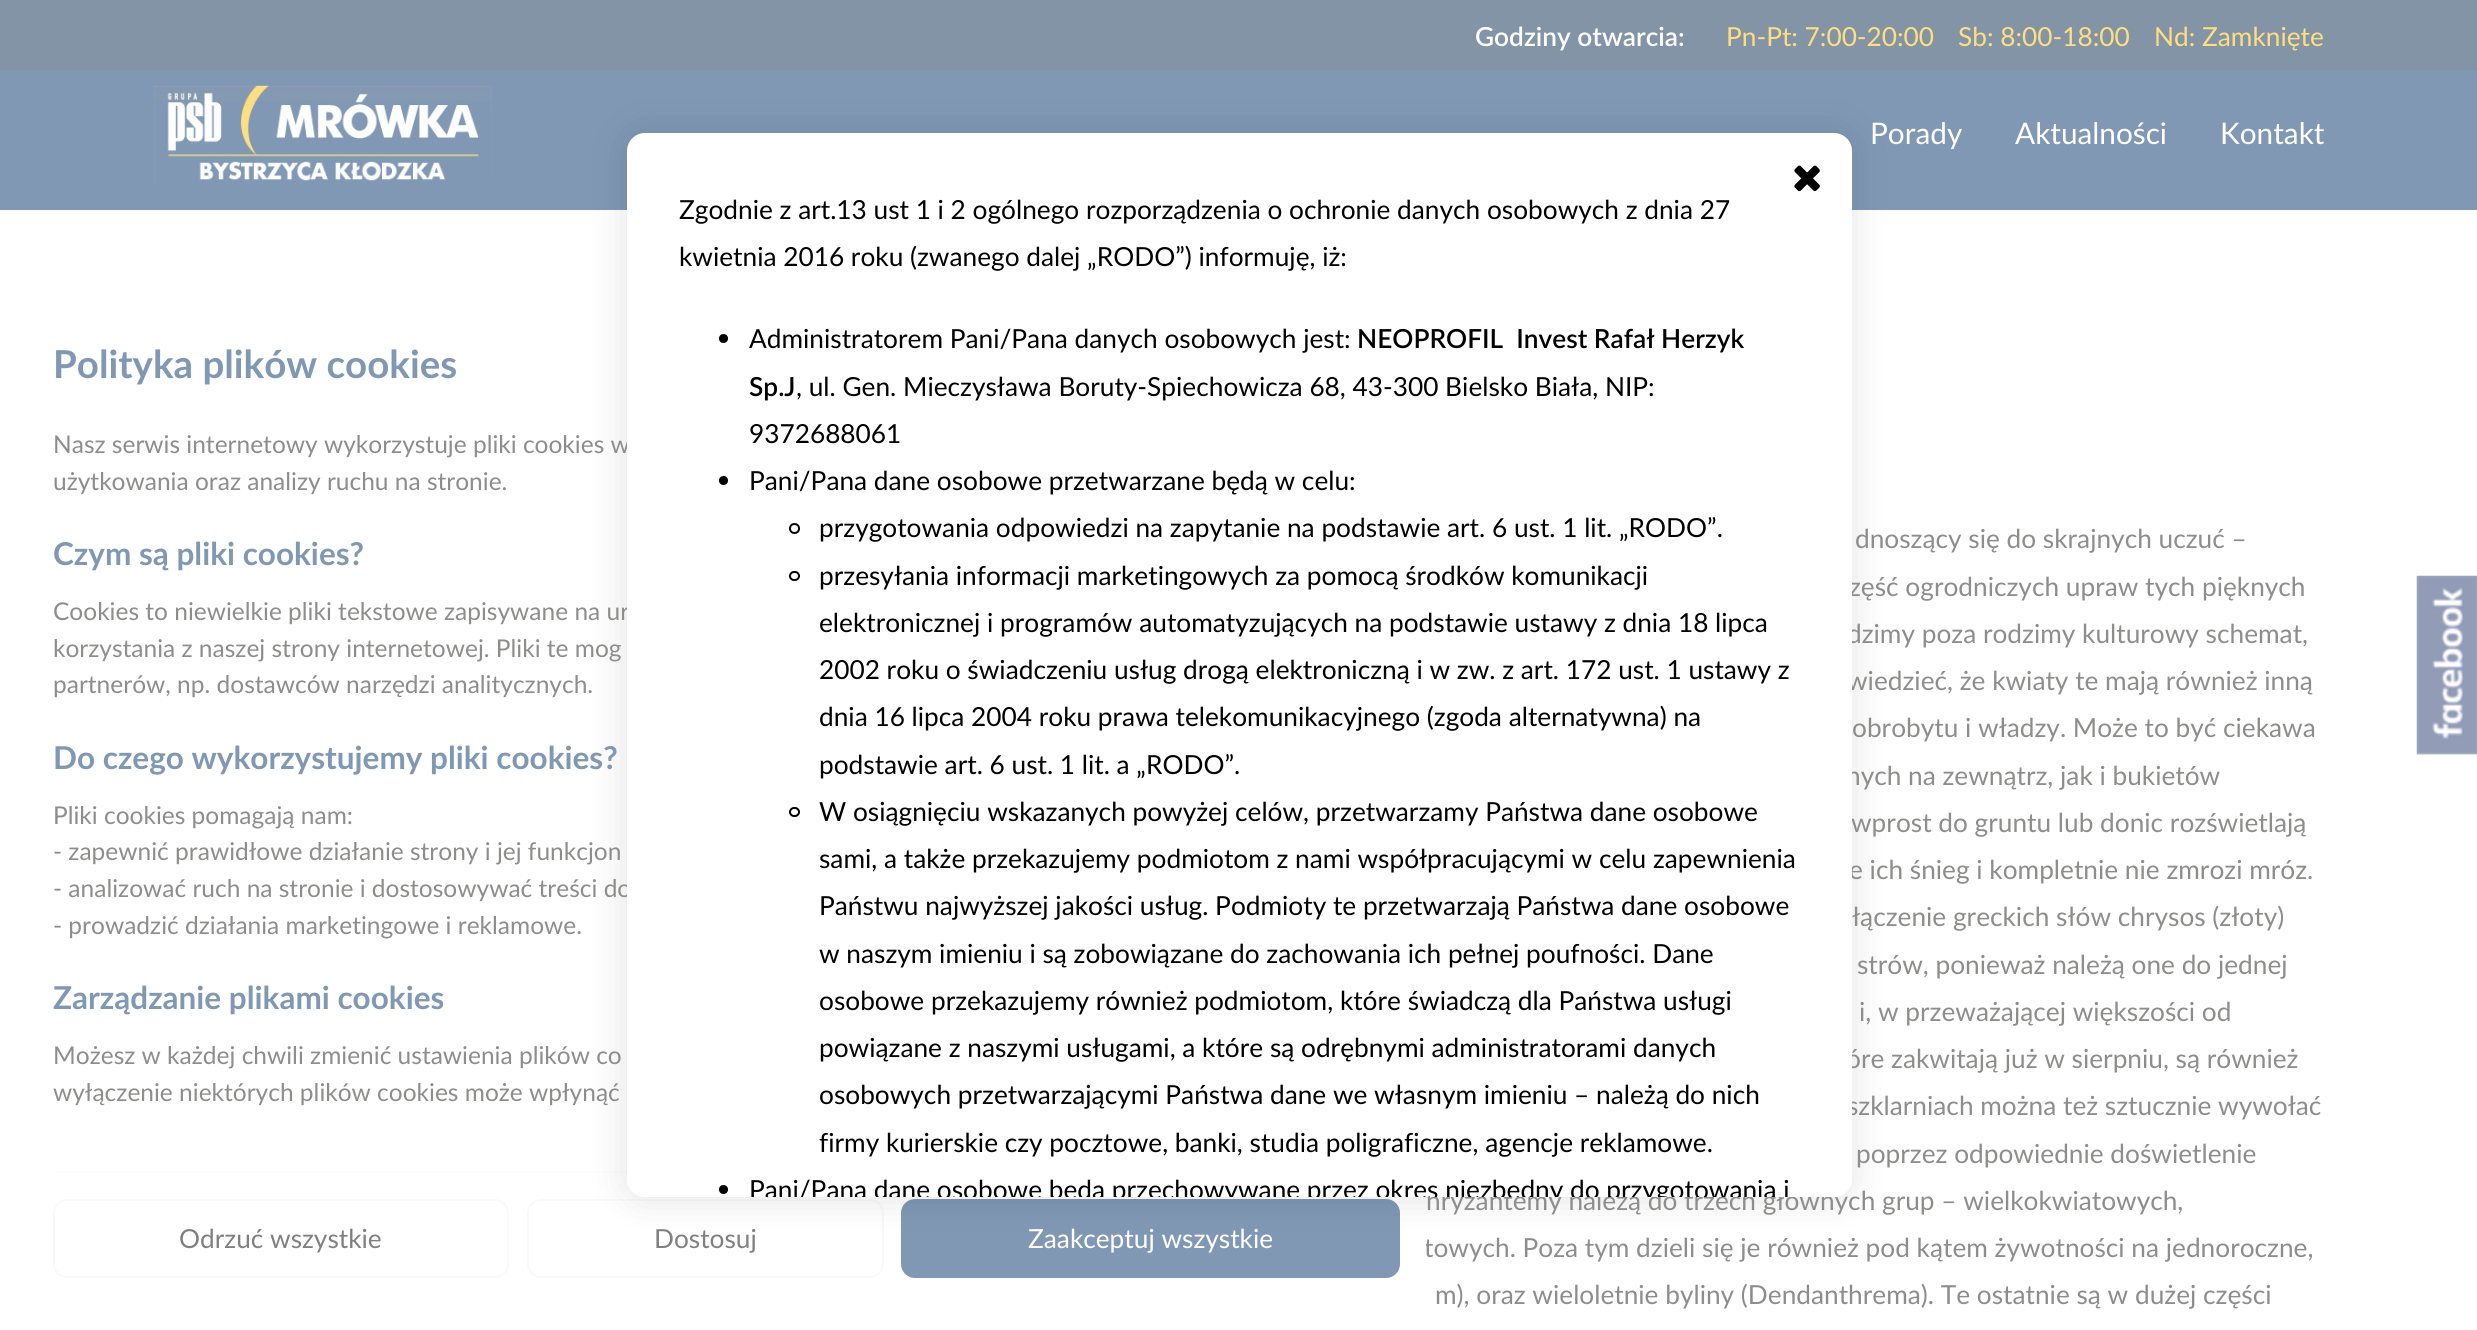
import math
import cairo

surface = cairo.ImageSurface(cairo.FORMAT_RGB24, 2477, 1330)
ctx = cairo.Context(surface)
options = cairo.FontOptions()
options.set_hint_metrics(cairo.HINT_METRICS_OFF)
options.set_hint_style(cairo.HINT_STYLE_NONE)
ctx.set_font_options(options)
ctx.set_miter_limit(4)


def round_rect(x, y, w, h, r):
    ctx.new_sub_path()
    for i, (u, v) in enumerate([(x + w - r, y + h - r), (x + r, y + h - r), (x + r, y + r), (x + w - r, y + r)]):
        ctx.arc(u, v, r, i * math.pi / 2, (i + 1) * math.pi / 2)
    ctx.close_path()


def shadow(x, y, w, h, r, blur, alpha):
    ctx.push_group_with_content(cairo.CONTENT_ALPHA)
    ctx.set_operator(cairo.OPERATOR_SOURCE)
    for i in range(15, -16, -2):
        e = blur * i / 6
        if min(w, h) + 2 * e > 0:
            ctx.set_source_rgba(0, 0, 0, alpha * math.erfc((i - 1) / 8.5) / 2)
            round_rect(x - e, y - e, w + 2 * e, h + 2 * e, max(0, min(r + e + blur * .6, min(w, h) / 2 + e)))
            ctx.fill()
    ctx.mask(ctx.pop_group())


def picture(path, x, y, w, h):
    ctx.save()
    ctx.set_source_surface(cairo.ImageSurface.create_from_png(path), x, y)
    ctx.rectangle(x, y, w, h)
    ctx.fill()
    ctx.restore()


ctx.set_source_rgb(1, 1, 1)
ctx.paint()
ctx.set_source_rgb(0.502, 0.596, 0.706)
ctx.rectangle(0, 70, 2477, 140)
ctx.fill()
ctx.set_source_rgb(0.518, 0.58, 0.655)
ctx.rectangle(0, 0, 2477, 70)
ctx.fill()
ctx.select_font_face("Lato SemiBold")
ctx.set_font_size(26.25)
ctx.set_source_rgb(1, 1, 1)
ctx.move_to(1475, 46)
ctx.show_text("Godziny otwarcia:")
ctx.select_font_face("Lato")
ctx.set_source_rgb(0.996, 0.875, 0.502)
ctx.move_to(1726, 46)
ctx.show_text("Pn-Pt: 7:00-20:00")
ctx.move_to(1958, 46)
ctx.show_text("Sb: 8:00-18:00")
ctx.move_to(2154, 46)
ctx.show_text("Nd: Zamknięte")
picture("img1.png", 154, 85, 338, 97)
ctx.set_font_size(29.75)
ctx.set_source_rgb(1, 1, 1)
ctx.move_to(1870, 144)
ctx.show_text("Porady")
ctx.move_to(2015, 144)
ctx.show_text("Aktualności")
ctx.move_to(2220, 144)
ctx.show_text("Kontakt")
ctx.set_font_size(26.25)
ctx.set_source_rgb(0.553, 0.553, 0.549)
ctx.move_to(1424, 1257)
ctx.show_text("towych. Poza tym dzieli się je również pod kątem żywotności na jednoroczne,")
ctx.set_source_rgb(1, 1, 1)
round_rect(26, 313, 1400, 991, 21)
ctx.fill()
ctx.set_source_rgb(0.988, 0.988, 0.988)
ctx.rectangle(53, 1171, 574, 2)
ctx.fill()
round_rect(528, 1200, 355, 77, 13)
ctx.set_source_rgb(0.973, 0.973, 0.973)
ctx.stroke()
ctx.set_source_rgb(0.502, 0.596, 0.706)
round_rect(902, 1200, 497, 77, 13)
ctx.fill_preserve()
ctx.stroke()
ctx.set_source_rgb(0, 0, 0)
shadow(623, 130, 1232, 1071, 21, 17.5, 0.1)
ctx.set_font_size(24.5)
ctx.set_source_rgb(0.553, 0.553, 0.549)
ctx.move_to(53, 453)
ctx.show_text("Nasz serwis internetowy wykorzystuje pliki cookies w")
ctx.move_to(53, 620)
ctx.show_text("Cookies to niewielkie pliki tekstowe zapisywane na ur")
ctx.move_to(53, 897)
ctx.show_text("- analizować ruch na stronie i dostosowywać treści do")
ctx.set_font_size(26.25)
ctx.move_to(1849, 596)
ctx.show_text("zęść ogrodniczych upraw tych pięknych")
ctx.move_to(1847, 643)
ctx.show_text("dzimy poza rodzimy kulturowy schemat,")
ctx.move_to(1847, 690)
ctx.show_text("wiedzieć, że kwiaty te mają również inną")
ctx.move_to(1846, 785)
ctx.show_text("nych na zewnątrz, jak i bukietów")
ctx.move_to(1851, 832)
ctx.show_text("wprost do gruntu lub donic rozświetlają")
ctx.move_to(1849, 879)
ctx.show_text("e ich śnieg i kompletnie nie zmrozi mróz.")
ctx.move_to(1846, 1068)
ctx.show_text("óre zakwitają już w sierpniu, są również")
ctx.move_to(1847, 1115)
ctx.show_text("szklarniach można też sztucznie wywołać")
ctx.move_to(1426, 1210)
ctx.show_text("hryzantemy należą do trzech głównych grup – wielkokwiatowych,")
ctx.set_source_rgb(1, 1, 1)
round_rect(627, 133, 1225, 1064, 18)
ctx.fill()
picture("img2.png", 1794, 165, 26, 27)
ctx.set_source_rgb(0, 0, 0)
ctx.move_to(679, 219)
ctx.show_text("Zgodnie z art.13 ust 1 i 2 ogólnego rozporządzenia o ochronie danych osobowych z dnia 27")
ctx.move_to(679, 266)
ctx.show_text("kwietnia 2016 roku (zwanego dalej „RODO”) informuję, iż:")
ctx.new_path()
ctx.arc(723.5, 338.5, 4.5, 0, 2 * math.pi)
ctx.fill()
ctx.move_to(749, 348)
ctx.show_text("Administratorem Pani/Pana danych osobowych jest:")
ctx.select_font_face("Lato SemiBold")
ctx.move_to(1357, 348)
ctx.show_text("NEOPROFIL  Invest Rafał Herzyk")
ctx.move_to(749, 396)
ctx.show_text("Sp.J")
ctx.select_font_face("Lato")
ctx.move_to(796, 396)
ctx.show_text(", ul. Gen. Mieczysława Boruty-Spiechowicza 68, 43-300 Bielsko Biała, NIP:")
ctx.move_to(749, 443)
ctx.show_text("9372688061")
ctx.new_path()
ctx.arc(723.5, 480.5, 4.5, 0, 2 * math.pi)
ctx.fill()
ctx.move_to(749, 490)
ctx.show_text("Pani/Pana dane osobowe przetwarzane będą w celu:")
ctx.new_path()
ctx.arc(794.5, 528.5, 4.5, 0, 2 * math.pi)
ctx.stroke()
ctx.move_to(819, 537)
ctx.show_text("przygotowania odpowiedzi na zapytanie na podstawie art. 6 ust. 1 lit. „RODO”.")
round_rect(790, 572, 9, 8, 4)
ctx.stroke()
ctx.move_to(819, 585)
ctx.show_text("przesyłania informacji marketingowych za pomocą środków komunikacji")
ctx.move_to(819, 632)
ctx.show_text("elektronicznej i programów automatyzujących na podstawie ustawy z dnia 18 lipca")
ctx.move_to(819, 679)
ctx.show_text("2002 roku o świadczeniu usług drogą elektroniczną i w zw. z art. 172 ust. 1 ustawy z")
ctx.move_to(819, 726)
ctx.show_text("dnia 16 lipca 2004 roku prawa telekomunikacyjnego (zgoda alternatywna) na")
ctx.move_to(819, 774)
ctx.show_text("podstawie art. 6 ust. 1 lit. a „RODO”.")
round_rect(790, 808, 9, 8, 4)
ctx.stroke()
ctx.move_to(819, 821)
ctx.show_text("W osiągnięciu wskazanych powyżej celów, przetwarzamy Państwa dane osobowe")
ctx.move_to(819, 868)
ctx.show_text("sami, a także przekazujemy podmiotom z nami współpracującymi w celu zapewnienia")
ctx.move_to(819, 915)
ctx.show_text("Państwu najwyższej jakości usług. Podmioty te przetwarzają Państwa dane osobowe")
ctx.move_to(819, 963)
ctx.show_text("w naszym imieniu i są zobowiązane do zachowania ich pełnej poufności. Dane")
ctx.move_to(819, 1010)
ctx.show_text("osobowe przekazujemy również podmiotom, które świadczą dla Państwa usługi")
ctx.move_to(819, 1057)
ctx.show_text("powiązane z naszymi usługami, a które są odrębnymi administratorami danych")
ctx.move_to(819, 1104)
ctx.show_text("osobowych przetwarzającymi Państwa dane we własnym imieniu – należą do nich")
ctx.move_to(819, 1152)
ctx.show_text("firmy kurierskie czy pocztowe, banki, studia poligraficzne, agencje reklamowe.")
ctx.new_path()
ctx.arc(723.5, 1189.5, 4.5, 0, 2 * math.pi)
ctx.fill()
ctx.save()
round_rect(627, 133, 1225, 1064, 18)
ctx.clip()
ctx.move_to(749, 1199)
ctx.show_text("Pani/Pana dane osobowe będą przechowywane przez okres niezbędny do przygotowania i")
ctx.restore()
ctx.select_font_face("Lato", cairo.FONT_SLANT_NORMAL, cairo.FONT_WEIGHT_BOLD)
ctx.set_font_size(38.5)
ctx.set_source_rgb(0.502, 0.596, 0.706)
ctx.move_to(53, 378)
ctx.show_text("Polityka plików cookies")
ctx.select_font_face("Lato")
ctx.set_font_size(24.5)
ctx.set_source_rgb(0.553, 0.553, 0.549)
ctx.move_to(53, 490)
ctx.show_text("użytkowania oraz analizy ruchu na stronie.")
ctx.select_font_face("Lato", cairo.FONT_SLANT_NORMAL, cairo.FONT_WEIGHT_BOLD)
ctx.set_font_size(31.5)
ctx.set_source_rgb(0.502, 0.596, 0.706)
ctx.move_to(53, 565)
ctx.show_text("Czym są pliki cookies?")
ctx.select_font_face("Lato")
ctx.set_font_size(24.5)
ctx.set_source_rgb(0.553, 0.553, 0.549)
ctx.move_to(53, 657)
ctx.show_text("korzystania z naszej strony internetowej. Pliki te mog")
ctx.move_to(53, 693)
ctx.show_text("partnerów, np. dostawców narzędzi analitycznych.")
ctx.select_font_face("Lato", cairo.FONT_SLANT_NORMAL, cairo.FONT_WEIGHT_BOLD)
ctx.set_font_size(31.5)
ctx.set_source_rgb(0.502, 0.596, 0.706)
ctx.move_to(53, 769)
ctx.show_text("Do czego wykorzystujemy pliki cookies?")
ctx.select_font_face("Lato")
ctx.set_font_size(24.5)
ctx.set_source_rgb(0.553, 0.553, 0.549)
ctx.move_to(53, 824)
ctx.show_text("Pliki cookies pomagają nam:")
ctx.move_to(53, 860)
ctx.show_text("- zapewnić prawidłowe działanie strony i jej funkcjon")
ctx.move_to(53, 934)
ctx.show_text("- prowadzić działania marketingowe i reklamowe.")
ctx.select_font_face("Lato", cairo.FONT_SLANT_NORMAL, cairo.FONT_WEIGHT_BOLD)
ctx.set_font_size(31.5)
ctx.set_source_rgb(0.502, 0.596, 0.706)
ctx.move_to(53, 1009)
ctx.show_text("Zarządzanie plikami cookies")
ctx.select_font_face("Lato")
ctx.set_font_size(24.5)
ctx.set_source_rgb(0.553, 0.553, 0.549)
ctx.move_to(53, 1064)
ctx.show_text("Możesz w każdej chwili zmienić ustawienia plików co")
ctx.move_to(53, 1101)
ctx.show_text("wyłączenie niektórych plików cookies może wpłynąć")
round_rect(54, 1200, 454, 77, 13)
ctx.set_source_rgb(0.973, 0.973, 0.973)
ctx.stroke()
ctx.set_font_size(26.25)
ctx.set_source_rgb(0.502, 0.502, 0.502)
ctx.move_to(179, 1248)
ctx.show_text("Odrzuć wszystkie")
ctx.move_to(654, 1248)
ctx.show_text("Dostosuj")
ctx.set_source_rgb(1, 1, 1)
ctx.move_to(1028, 1248)
ctx.show_text("Zaakceptuj wszystkie")
ctx.set_source_rgb(0.553, 0.553, 0.549)
ctx.move_to(1855, 548)
ctx.show_text("dnoszący się do skrajnych uczuć –")
ctx.move_to(1852, 737)
ctx.show_text("obrobytu i władzy. Może to być ciekawa")
ctx.move_to(1852, 926)
ctx.show_text("łączenie greckich słów chrysos (złoty)")
ctx.move_to(1857, 974)
ctx.show_text("strów, ponieważ należą one do jednej")
ctx.move_to(1859, 1021)
ctx.show_text("i, w przeważającej większości od")
ctx.move_to(1856, 1163)
ctx.show_text("poprzez odpowiednie doświetlenie")
ctx.move_to(1435, 1304)
ctx.show_text("m), oraz wieloletnie byliny (Dendanthrema). Te ostatnie są w dużej części")
picture("img3.png", 2416, 575, 61, 180)
surface.write_to_png("page.png")
